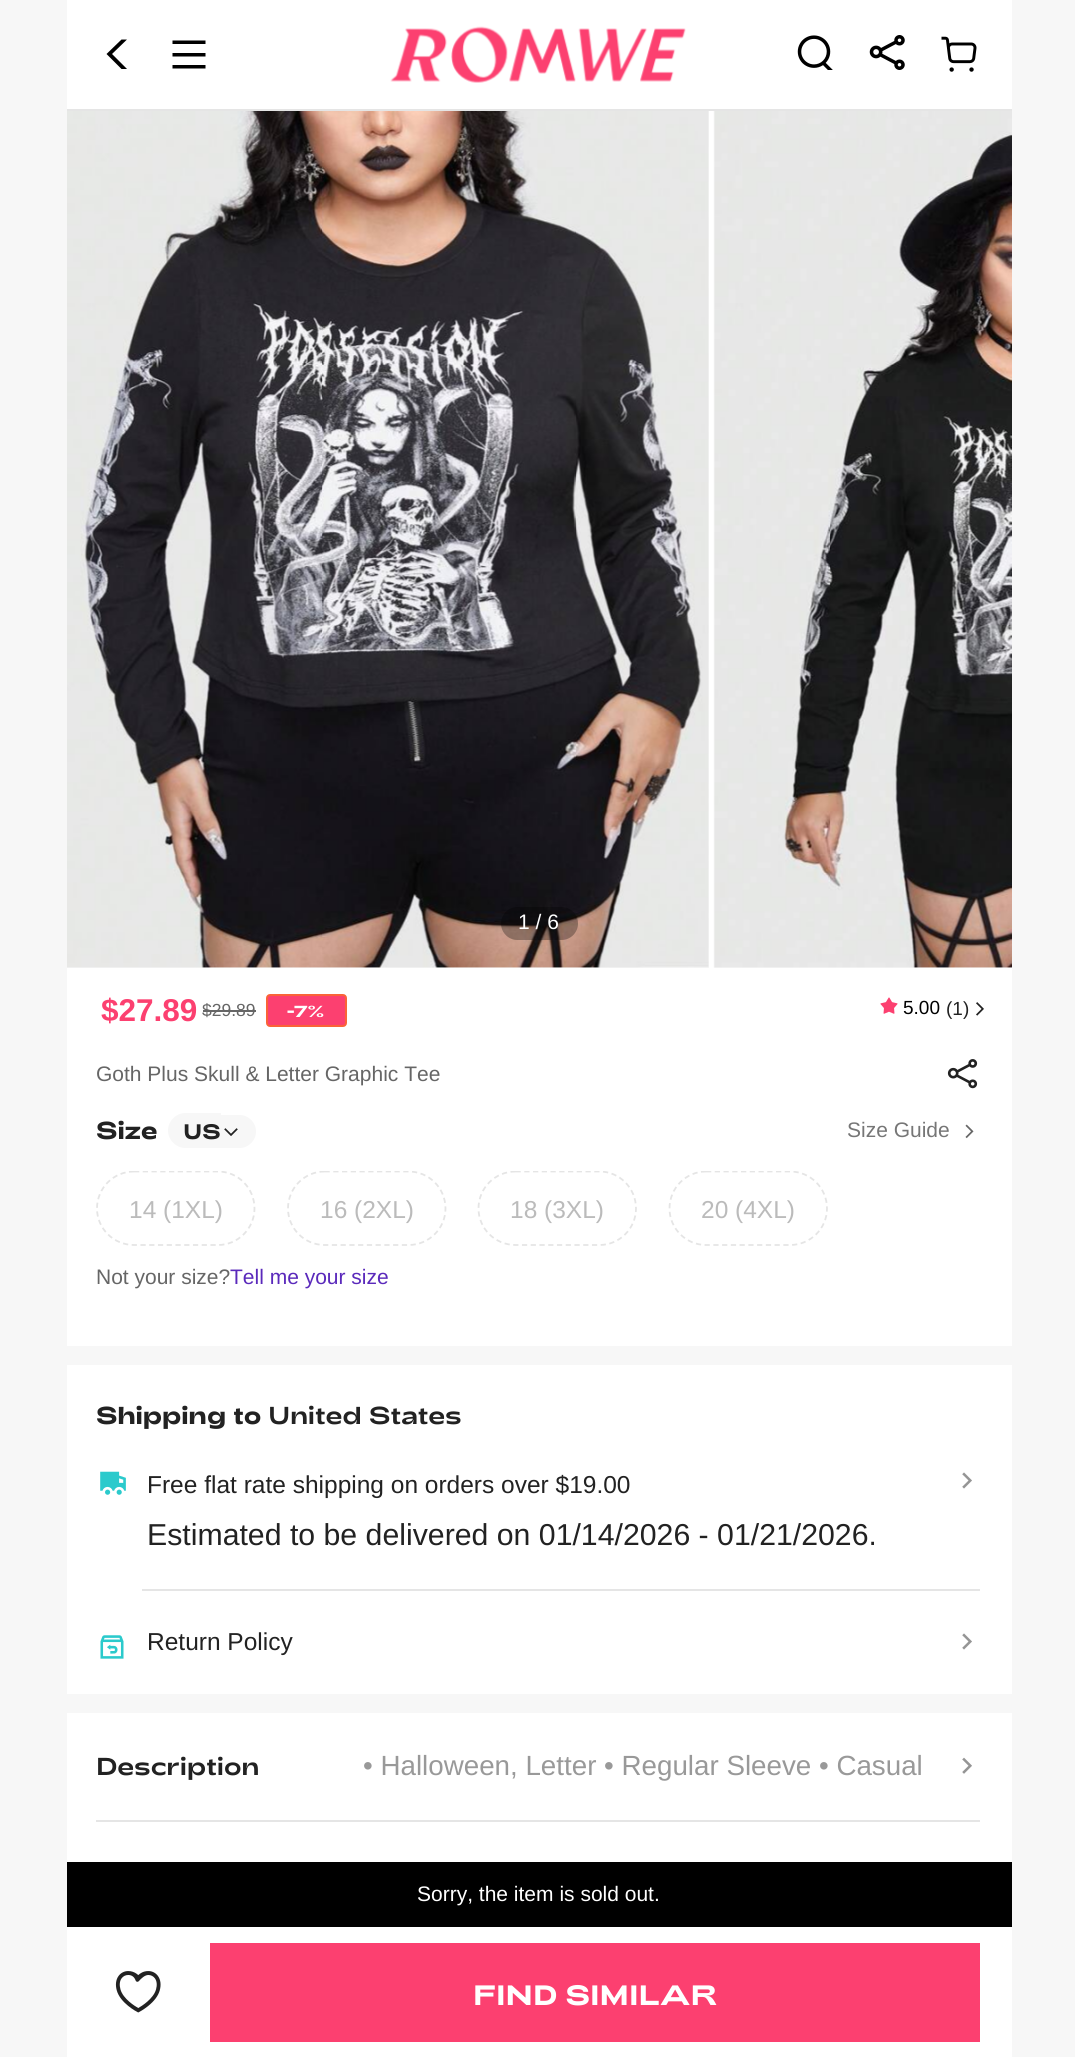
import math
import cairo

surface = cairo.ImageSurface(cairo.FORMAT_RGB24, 1075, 2057)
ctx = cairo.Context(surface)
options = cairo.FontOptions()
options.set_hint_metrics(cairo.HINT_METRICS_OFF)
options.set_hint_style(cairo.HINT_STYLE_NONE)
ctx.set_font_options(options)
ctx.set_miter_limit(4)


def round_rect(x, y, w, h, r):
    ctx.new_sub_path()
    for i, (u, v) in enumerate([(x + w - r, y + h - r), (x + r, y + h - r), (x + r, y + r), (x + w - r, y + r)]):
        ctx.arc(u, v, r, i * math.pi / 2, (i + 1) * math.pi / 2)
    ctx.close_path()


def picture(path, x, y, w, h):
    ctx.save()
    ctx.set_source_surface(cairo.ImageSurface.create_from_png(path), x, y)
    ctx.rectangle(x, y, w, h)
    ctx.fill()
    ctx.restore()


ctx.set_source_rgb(0.965, 0.965, 0.965)
ctx.paint()
ctx.set_source_rgb(1, 1, 1)
ctx.rectangle(67, 0, 945, 109)
ctx.fill()
ctx.set_source_rgb(0.898, 0.898, 0.898)
ctx.rectangle(67, 109, 945, 2)
ctx.fill()
ctx.set_source_rgb(0, 0, 0)
ctx.new_path()
ctx.move_to(127, 39.5)
ctx.line_to(112, 54)
ctx.line_to(127, 69)
ctx.line_to(121.5, 69)
ctx.line_to(106.5, 54)
ctx.line_to(121.5, 39.5)
ctx.close_path()
ctx.fill()
ctx.new_path()
ctx.move_to(205.5, 53)
ctx.line_to(205.5, 56.5)
ctx.line_to(172.5, 56.5)
ctx.line_to(172.5, 53)
ctx.close_path()
ctx.move_to(205.5, 40.5)
ctx.line_to(205.5, 44)
ctx.line_to(172.5, 44)
ctx.line_to(172.5, 40.5)
ctx.close_path()
ctx.move_to(205.5, 65)
ctx.line_to(205.5, 68.5)
ctx.line_to(172.5, 68.5)
ctx.line_to(172.5, 65)
ctx.close_path()
ctx.fill()
picture("img1.png", 390, 26, 296, 57)
picture("img2.png", 797, 35, 36, 35)
picture("img3.png", 869, 35, 36, 35)
picture("img4.png", 941, 36, 36, 36)
ctx.set_source_rgb(1, 1, 1)
ctx.rectangle(67, 111, 945, 1235)
ctx.fill()
ctx.set_source_rgb(0.965, 0.965, 0.965)
ctx.rectangle(67, 111, 642, 857)
ctx.fill()
picture("img5.png", 67, 111, 642, 857)
ctx.rectangle(714, 111, 298, 857)
ctx.fill()
picture("img6.png", 713, 111, 299, 857)
ctx.set_source_rgba(0, 0, 0.004, 0.3)
round_rect(501, 907, 77, 33, 16.5)
ctx.fill()
ctx.select_font_face("Liberation Sans")
ctx.set_font_size(21)
ctx.set_source_rgb(1, 1, 1)
ctx.move_to(518, 929)
ctx.show_text("1 / 6")
ctx.select_font_face("Liberation Sans", cairo.FONT_SLANT_NORMAL, cairo.FONT_WEIGHT_BOLD)
ctx.set_font_size(31.5)
ctx.set_source_rgb(0.988, 0.251, 0.439)
ctx.move_to(101, 1021)
ctx.show_text("$27.89")
ctx.select_font_face("Liberation Sans")
ctx.set_font_size(17.5)
ctx.set_source_rgb(0.4, 0.4, 0.4)
ctx.move_to(202, 1016)
ctx.show_text("$29.89")
ctx.rectangle(203, 1010, 53, 2)
ctx.fill()
ctx.set_source_rgb(0.988, 0.251, 0.439)
round_rect(267, 995, 79, 31, 3)
ctx.fill_preserve()
ctx.set_source_rgb(0.98, 0.388, 0.22)
ctx.stroke()
ctx.select_font_face("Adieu", cairo.FONT_SLANT_NORMAL, cairo.FONT_WEIGHT_BOLD)
ctx.set_font_size(16)
ctx.set_source_rgb(1, 1, 1)
ctx.move_to(287, 1017)
ctx.show_text("-7%")
picture("img7.png", 880, 997, 18, 17)
ctx.select_font_face("Liberation Sans")
ctx.set_font_size(19)
ctx.set_source_rgb(0, 0, 0)
ctx.move_to(903, 1014)
ctx.show_text("5.00")
ctx.set_source_rgb(0.133, 0.133, 0.133)
ctx.move_to(946, 1015)
ctx.show_text("(1)")
picture("img8.png", 976, 1002, 8, 14)
ctx.set_font_size(21)
ctx.set_source_rgb(0.4, 0.4, 0.4)
ctx.move_to(96, 1081)
ctx.show_text("Goth Plus Skull & Letter Graphic Tee")
picture("img9.png", 947, 1059, 31, 30)
ctx.select_font_face("Adieu", cairo.FONT_SLANT_NORMAL, cairo.FONT_WEIGHT_BOLD)
ctx.set_font_size(24.5)
ctx.set_source_rgb(0.133, 0.133, 0.133)
ctx.move_to(96, 1139)
ctx.show_text("Size")
ctx.set_source_rgb(0.965, 0.965, 0.965)
ctx.new_path()
ctx.move_to(185.5, 1113)
ctx.line_to(221, 1113)
ctx.line_to(221, 1148)
ctx.line_to(185.5, 1148)
ctx.curve_to(176, 1148, 168, 1140, 168, 1130.5)
ctx.curve_to(168, 1121, 176, 1113, 185.5, 1113)
ctx.close_path()
ctx.fill()
ctx.set_font_size(21)
ctx.set_source_rgb(0.133, 0.133, 0.133)
ctx.move_to(183, 1139)
ctx.show_text("US")
ctx.set_source_rgb(0.965, 0.965, 0.965)
ctx.new_path()
ctx.move_to(221, 1115)
ctx.line_to(239.5, 1115)
ctx.curve_to(248.5, 1115, 256, 1122.5, 256, 1131.5)
ctx.curve_to(256, 1140.5, 248.5, 1148, 239.5, 1148)
ctx.line_to(221, 1148)
ctx.close_path()
ctx.fill()
picture("img10.png", 224, 1128, 14, 8)
ctx.select_font_face("Liberation Sans")
ctx.set_source_rgb(0.463, 0.463, 0.463)
ctx.move_to(847, 1137)
ctx.show_text("Size Guide")
picture("img11.png", 965, 1124, 9, 15)
ctx.save()
ctx.rectangle(96, 1171, 884, 94)
ctx.clip()
ctx.new_path()
ctx.move_to(134, 1171.5)
ctx.line_to(218, 1171.5)
ctx.curve_to(238, 1171.5, 254.5, 1188, 254.5, 1208.5)
ctx.curve_to(254.5, 1228.5, 238, 1245, 218, 1245)
ctx.line_to(134, 1245)
ctx.curve_to(113.5, 1245, 97, 1228.5, 97, 1208.5)
ctx.curve_to(97, 1188, 113.5, 1171.5, 134, 1171.5)
ctx.close_path()
ctx.set_source_rgb(0.898, 0.898, 0.898)
ctx.set_line_width(1.8)
ctx.set_dash([5.25, 3.5])
ctx.stroke()
ctx.restore()
ctx.set_font_size(24.5)
ctx.set_source_rgb(0.733, 0.733, 0.733)
ctx.move_to(129, 1218)
ctx.show_text("14 (1XL)")
ctx.save()
ctx.rectangle(96, 1171, 884, 94)
ctx.clip()
ctx.new_path()
ctx.move_to(324.5, 1171.5)
ctx.line_to(408.5, 1171.5)
ctx.curve_to(429, 1171.5, 445.5, 1188, 445.5, 1208.5)
ctx.curve_to(445.5, 1228.5, 429, 1245, 408.5, 1245)
ctx.line_to(324.5, 1245)
ctx.curve_to(304.5, 1245, 288, 1228.5, 288, 1208.5)
ctx.curve_to(288, 1188, 304.5, 1171.5, 324.5, 1171.5)
ctx.close_path()
ctx.set_source_rgb(0.898, 0.898, 0.898)
ctx.set_line_width(1.8)
ctx.set_dash([5.25, 3.5])
ctx.stroke()
ctx.restore()
ctx.move_to(320, 1218)
ctx.show_text("16 (2XL)")
ctx.save()
ctx.rectangle(96, 1171, 884, 94)
ctx.clip()
ctx.new_path()
ctx.move_to(515.5, 1171.5)
ctx.line_to(599.5, 1171.5)
ctx.curve_to(619.5, 1171.5, 636, 1188, 636, 1208.5)
ctx.curve_to(636, 1228.5, 619.5, 1245, 599.5, 1245)
ctx.line_to(515.5, 1245)
ctx.curve_to(495, 1245, 478.5, 1228.5, 478.5, 1208.5)
ctx.curve_to(478.5, 1188, 495, 1171.5, 515.5, 1171.5)
ctx.close_path()
ctx.set_source_rgb(0.898, 0.898, 0.898)
ctx.set_line_width(1.8)
ctx.set_dash([5.25, 3.5])
ctx.stroke()
ctx.restore()
ctx.move_to(510, 1218)
ctx.show_text("18 (3XL)")
ctx.save()
ctx.rectangle(96, 1171, 884, 94)
ctx.clip()
ctx.new_path()
ctx.move_to(706, 1171.5)
ctx.line_to(790, 1171.5)
ctx.curve_to(810.5, 1171.5, 827, 1188, 827, 1208.5)
ctx.curve_to(827, 1228.5, 810.5, 1245, 790, 1245)
ctx.line_to(706, 1245)
ctx.curve_to(686, 1245, 669.5, 1228.5, 669.5, 1208.5)
ctx.curve_to(669.5, 1188, 686, 1171.5, 706, 1171.5)
ctx.close_path()
ctx.set_source_rgb(0.898, 0.898, 0.898)
ctx.set_line_width(1.8)
ctx.set_dash([5.25, 3.5])
ctx.stroke()
ctx.restore()
ctx.move_to(701, 1218)
ctx.show_text("20 (4XL)")
ctx.set_font_size(21)
ctx.set_source_rgb(0.4, 0.4, 0.4)
ctx.move_to(96, 1284)
ctx.show_text("Not your size?")
ctx.set_source_rgb(0.353, 0.161, 0.733)
ctx.move_to(230, 1284)
ctx.show_text("Tell me your size")
ctx.set_source_rgb(1, 1, 1)
ctx.rectangle(67, 1365, 945, 329)
ctx.fill()
ctx.select_font_face("Adieu", cairo.FONT_SLANT_NORMAL, cairo.FONT_WEIGHT_BOLD)
ctx.set_font_size(24.5)
ctx.set_source_rgb(0.133, 0.133, 0.133)
ctx.move_to(96, 1424)
ctx.show_text("Shipping to")
ctx.select_font_face("Adieu")
ctx.move_to(268, 1424)
ctx.show_text("United States")
picture("img12.png", 100, 1471, 26, 24)
ctx.select_font_face("Liberation Sans")
ctx.move_to(147, 1493)
ctx.show_text("Free flat rate shipping on orders over $19.00")
ctx.set_font_size(30.25)
ctx.move_to(147, 1545)
ctx.show_text("Estimated to be delivered on 01/14/2026 - 01/21/2026.")
picture("img13.png", 962, 1472, 10, 17)
ctx.set_source_rgb(0.898, 0.898, 0.898)
ctx.rectangle(142, 1589, 838, 2)
ctx.fill()
picture("img14.png", 100, 1635, 24, 24)
ctx.set_font_size(24.5)
ctx.set_source_rgb(0.133, 0.133, 0.133)
ctx.move_to(147, 1650)
ctx.show_text("Return Policy")
picture("img13.png", 962, 1633, 10, 17)
ctx.set_source_rgb(1, 1, 1)
ctx.rectangle(67, 1713, 945, 149)
ctx.fill()
ctx.select_font_face("Adieu")
ctx.set_source_rgb(0.133, 0.133, 0.133)
ctx.move_to(96, 1775)
ctx.show_text("Description")
ctx.select_font_face("Liberation Sans")
ctx.set_font_size(27.75)
ctx.set_source_rgb(0.6, 0.6, 0.6)
ctx.move_to(363, 1775)
ctx.show_text("• Halloween, Letter • Regular Sleeve • Casual")
picture("img15.png", 962, 1757, 10, 17)
ctx.set_source_rgb(0.898, 0.898, 0.898)
ctx.rectangle(96, 1820, 884, 2)
ctx.fill()
ctx.set_source_rgb(1, 1, 1)
ctx.rectangle(67, 1927, 945, 130)
ctx.fill()
ctx.set_source_rgb(0, 0, 0)
ctx.rectangle(67, 1862, 945, 65)
ctx.fill()
ctx.set_font_size(21)
ctx.set_source_rgb(1, 1, 1)
ctx.move_to(417, 1901)
ctx.show_text("Sorry, the item is sold out.")
picture("img16.png", 115, 1971, 46, 42)
ctx.set_source_rgb(0.988, 0.251, 0.439)
ctx.rectangle(210, 1943, 770, 99)
ctx.fill()
ctx.select_font_face("Adieu", cairo.FONT_SLANT_NORMAL, cairo.FONT_WEIGHT_BOLD)
ctx.set_font_size(28)
ctx.set_source_rgb(1, 1, 1)
ctx.move_to(473, 2005)
ctx.show_text("FIND SIMILAR")
surface.write_to_png("page.png")
